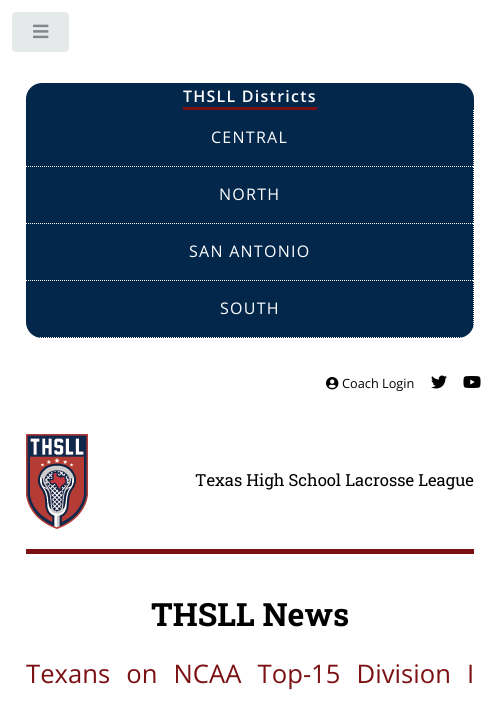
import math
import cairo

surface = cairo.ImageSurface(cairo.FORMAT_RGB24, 500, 708)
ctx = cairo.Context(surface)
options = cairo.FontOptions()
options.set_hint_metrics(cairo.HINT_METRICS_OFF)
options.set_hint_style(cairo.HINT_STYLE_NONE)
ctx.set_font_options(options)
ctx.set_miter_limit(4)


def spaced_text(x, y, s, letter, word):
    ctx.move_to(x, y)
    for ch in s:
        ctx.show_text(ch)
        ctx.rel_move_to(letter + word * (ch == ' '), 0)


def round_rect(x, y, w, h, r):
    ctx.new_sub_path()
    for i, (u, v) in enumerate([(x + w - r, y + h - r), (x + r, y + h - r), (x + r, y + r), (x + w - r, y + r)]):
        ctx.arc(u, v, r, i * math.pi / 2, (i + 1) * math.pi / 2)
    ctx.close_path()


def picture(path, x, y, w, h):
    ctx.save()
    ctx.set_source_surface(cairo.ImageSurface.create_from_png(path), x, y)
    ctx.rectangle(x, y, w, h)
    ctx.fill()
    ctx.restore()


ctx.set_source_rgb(1, 1, 1)
ctx.paint()
ctx.set_source_rgb(0.902, 0.914, 0.914)
round_rect(12, 12, 57, 40, 4)
ctx.fill()
picture("img1.png", 33, 24, 16, 15)
ctx.set_source_rgb(0.012, 0.153, 0.294)
round_rect(26, 83, 448, 255, 16)
ctx.fill()
ctx.select_font_face("Open Sans SemiBold")
ctx.set_font_size(16)
ctx.set_source_rgb(1, 1, 1)
spaced_text(183, 102, "THSLL Districts", 1.25, 0)
ctx.set_source_rgb(0.482, 0.067, 0.075)
ctx.rectangle(183, 107, 134, 3)
ctx.fill()
ctx.new_path()
ctx.move_to(473.5, 110)
ctx.line_to(473.5, 167)
ctx.set_source_rgb(1, 1, 1)
ctx.set_line_width(1)
ctx.set_dash([1, 1])
ctx.stroke()
ctx.new_path()
ctx.move_to(26, 166.5)
ctx.line_to(474, 166.5)
ctx.stroke()
ctx.select_font_face("Open Sans")
spaced_text(211, 143, "CENTRAL", 1.25, 0)
ctx.new_path()
ctx.move_to(473.5, 167)
ctx.line_to(473.5, 224)
ctx.stroke()
ctx.new_path()
ctx.move_to(26, 223.5)
ctx.line_to(474, 223.5)
ctx.stroke()
spaced_text(219, 200, "NORTH", 1.25, 0)
ctx.new_path()
ctx.move_to(473.5, 224)
ctx.line_to(473.5, 281)
ctx.stroke()
ctx.new_path()
ctx.move_to(26, 280.5)
ctx.line_to(474, 280.5)
ctx.stroke()
spaced_text(189, 257, "SAN ANTONIO", 1.25, 0)
ctx.save()
round_rect(26, 83, 448, 255, 16)
ctx.clip()
ctx.new_path()
ctx.move_to(473.5, 281)
ctx.line_to(473.5, 338)
ctx.stroke()
ctx.new_path()
ctx.move_to(26, 337.5)
ctx.line_to(474, 337.5)
ctx.stroke()
ctx.restore()
spaced_text(220, 314, "SOUTH", 1.25, 0)
ctx.set_source_rgb(0.482, 0.067, 0.075)
ctx.rectangle(26, 549, 448, 5)
ctx.fill()
picture("img2.png", 326, 377, 13, 13)
ctx.set_font_size(12.75)
ctx.set_source_rgb(0, 0, 0)
ctx.move_to(342, 388)
ctx.show_text("Coach Login")
picture("img3.png", 431, 375, 16, 14)
picture("img4.png", 463, 376, 18, 12)
picture("img5.png", 26, 434, 62, 95)
ctx.select_font_face("Roboto Slab")
ctx.set_font_size(16.6)
ctx.move_to(195, 486)
ctx.show_text("Texas High School Lacrosse League")
ctx.select_font_face("Roboto Slab", cairo.FONT_SLANT_NORMAL, cairo.FONT_WEIGHT_BOLD)
ctx.set_font_size(32)
ctx.move_to(151, 626)
ctx.show_text("THSLL News")
ctx.select_font_face("Open Sans")
ctx.set_font_size(25.6)
ctx.set_source_rgb(0.482, 0.067, 0.075)
spaced_text(26, 683, "Texans on NCAA Top-15 Division I", 0, 9.5)
surface.write_to_png("page.png")
